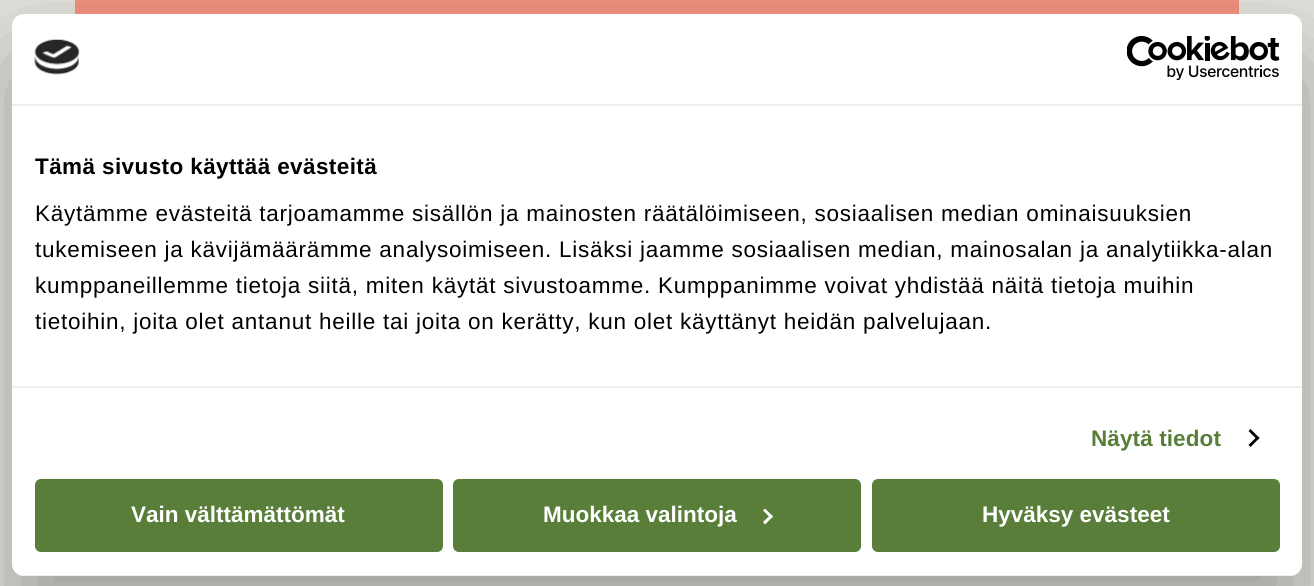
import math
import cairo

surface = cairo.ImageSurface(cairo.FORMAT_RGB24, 1314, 586)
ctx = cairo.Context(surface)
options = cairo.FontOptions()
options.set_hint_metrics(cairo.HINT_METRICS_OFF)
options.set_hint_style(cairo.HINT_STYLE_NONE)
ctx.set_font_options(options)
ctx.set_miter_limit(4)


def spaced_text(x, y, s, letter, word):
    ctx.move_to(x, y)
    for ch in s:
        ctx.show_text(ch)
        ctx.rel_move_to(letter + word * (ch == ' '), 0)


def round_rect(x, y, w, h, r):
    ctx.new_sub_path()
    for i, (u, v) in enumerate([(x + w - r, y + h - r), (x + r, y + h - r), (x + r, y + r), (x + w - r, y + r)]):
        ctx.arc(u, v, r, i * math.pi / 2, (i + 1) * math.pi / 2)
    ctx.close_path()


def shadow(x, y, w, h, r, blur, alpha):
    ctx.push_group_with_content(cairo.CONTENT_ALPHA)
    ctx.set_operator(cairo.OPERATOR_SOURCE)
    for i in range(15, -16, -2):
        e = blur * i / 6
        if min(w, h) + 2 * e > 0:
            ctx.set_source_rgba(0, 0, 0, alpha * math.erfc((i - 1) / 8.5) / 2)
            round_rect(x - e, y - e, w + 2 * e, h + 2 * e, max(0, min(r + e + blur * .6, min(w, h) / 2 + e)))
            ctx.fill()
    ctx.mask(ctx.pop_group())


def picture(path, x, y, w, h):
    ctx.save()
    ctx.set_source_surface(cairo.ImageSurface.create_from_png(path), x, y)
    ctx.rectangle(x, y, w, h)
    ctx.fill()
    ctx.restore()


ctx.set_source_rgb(0.89, 0.882, 0.863)
ctx.paint()
ctx.set_source_rgb(0.949, 0.569, 0.494)
ctx.rectangle(75, 0, 1164, 14)
ctx.fill()
ctx.set_source_rgb(0, 0, 0)
shadow(12, 62, 1290, 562, 12, 51, 0.3)
ctx.set_source_rgb(1, 1, 1)
round_rect(12, 14, 1290, 562, 12)
ctx.fill()
ctx.set_source_rgb(0.933, 0.933, 0.933)
ctx.rectangle(12, 104, 1290, 2)
ctx.fill()
picture("img1.png", 34, 39, 46, 36)
picture("img2.png", 1127, 36, 153, 45)
ctx.rectangle(12, 386, 1290, 2)
ctx.fill()
ctx.select_font_face("Liberation Sans", cairo.FONT_SLANT_NORMAL, cairo.FONT_WEIGHT_BOLD)
ctx.set_font_size(22.5)
ctx.set_source_rgb(0, 0, 0)
spaced_text(35, 174, "Tämä sivusto käyttää evästeitä", 0.4, 0)
ctx.select_font_face("Liberation Sans")
spaced_text(35, 221, "Käytämme evästeitä tarjoamamme sisällön ja mainosten räätälöimiseen, sosiaalisen median ominaisuuksien", 0.75, 0)
spaced_text(35, 257, "tukemiseen ja kävijämäärämme analysoimiseen. Lisäksi jaamme sosiaalisen median, mainosalan ja analytiikka-alan", 0.75, 0)
spaced_text(35, 293, "kumppaneillemme tietoja siitä, miten käytät sivustoamme. Kumppanimme voivat yhdistää näitä tietoja muihin", 0.75, 0)
spaced_text(35, 329, "tietoihin, joita olet antanut heille tai joita on kerätty, kun olet käyttänyt heidän palvelujaan.", 0.75, 0)
ctx.select_font_face("Liberation Sans", cairo.FONT_SLANT_NORMAL, cairo.FONT_WEIGHT_BOLD)
ctx.set_source_rgb(0.345, 0.494, 0.227)
spaced_text(1091, 446, "Näytä tiedot", 0.1, 0)
ctx.set_source_rgb(0, 0, 0)
ctx.new_path()
ctx.move_to(1250.5, 429)
ctx.line_to(1259.5, 438)
ctx.line_to(1257.5, 440)
ctx.line_to(1248.5, 431)
ctx.close_path()
ctx.fill()
ctx.new_path()
ctx.move_to(1257.5, 436)
ctx.line_to(1259.5, 438)
ctx.line_to(1250.5, 447)
ctx.line_to(1248.5, 445)
ctx.close_path()
ctx.fill()
ctx.save()
round_rect(12, 14, 1290, 562, 12)
ctx.clip()
ctx.set_source_rgb(0.933, 0.933, 0.933)
ctx.rectangle(12, 575, 1290, 1)
ctx.fill()
ctx.restore()
ctx.set_source_rgb(0.345, 0.494, 0.227)
round_rect(36.5, 480.5, 405, 70, 4.5)
ctx.fill_preserve()
ctx.set_line_width(3)
ctx.stroke()
ctx.set_source_rgb(1, 1, 1)
ctx.move_to(131, 522)
ctx.show_text("Vain välttämättömät")
ctx.set_source_rgb(0.345, 0.494, 0.227)
round_rect(454.5, 480.5, 405, 70, 4.5)
ctx.fill_preserve()
ctx.stroke()
ctx.set_source_rgb(1, 1, 1)
ctx.move_to(543, 522)
ctx.show_text("Muokkaa valintoja")
ctx.new_path()
ctx.move_to(765, 508.5)
ctx.line_to(773, 516.5)
ctx.line_to(771, 518.5)
ctx.line_to(763, 510.5)
ctx.close_path()
ctx.fill()
ctx.new_path()
ctx.move_to(771, 514.5)
ctx.line_to(773, 516.5)
ctx.line_to(765, 524.5)
ctx.line_to(763, 522)
ctx.close_path()
ctx.fill()
ctx.set_source_rgb(0.345, 0.494, 0.227)
round_rect(873.5, 480.5, 405, 70, 4.5)
ctx.fill_preserve()
ctx.stroke()
ctx.set_source_rgb(1, 1, 1)
ctx.move_to(982, 522)
ctx.show_text("Hyväksy evästeet")
surface.write_to_png("page.png")
